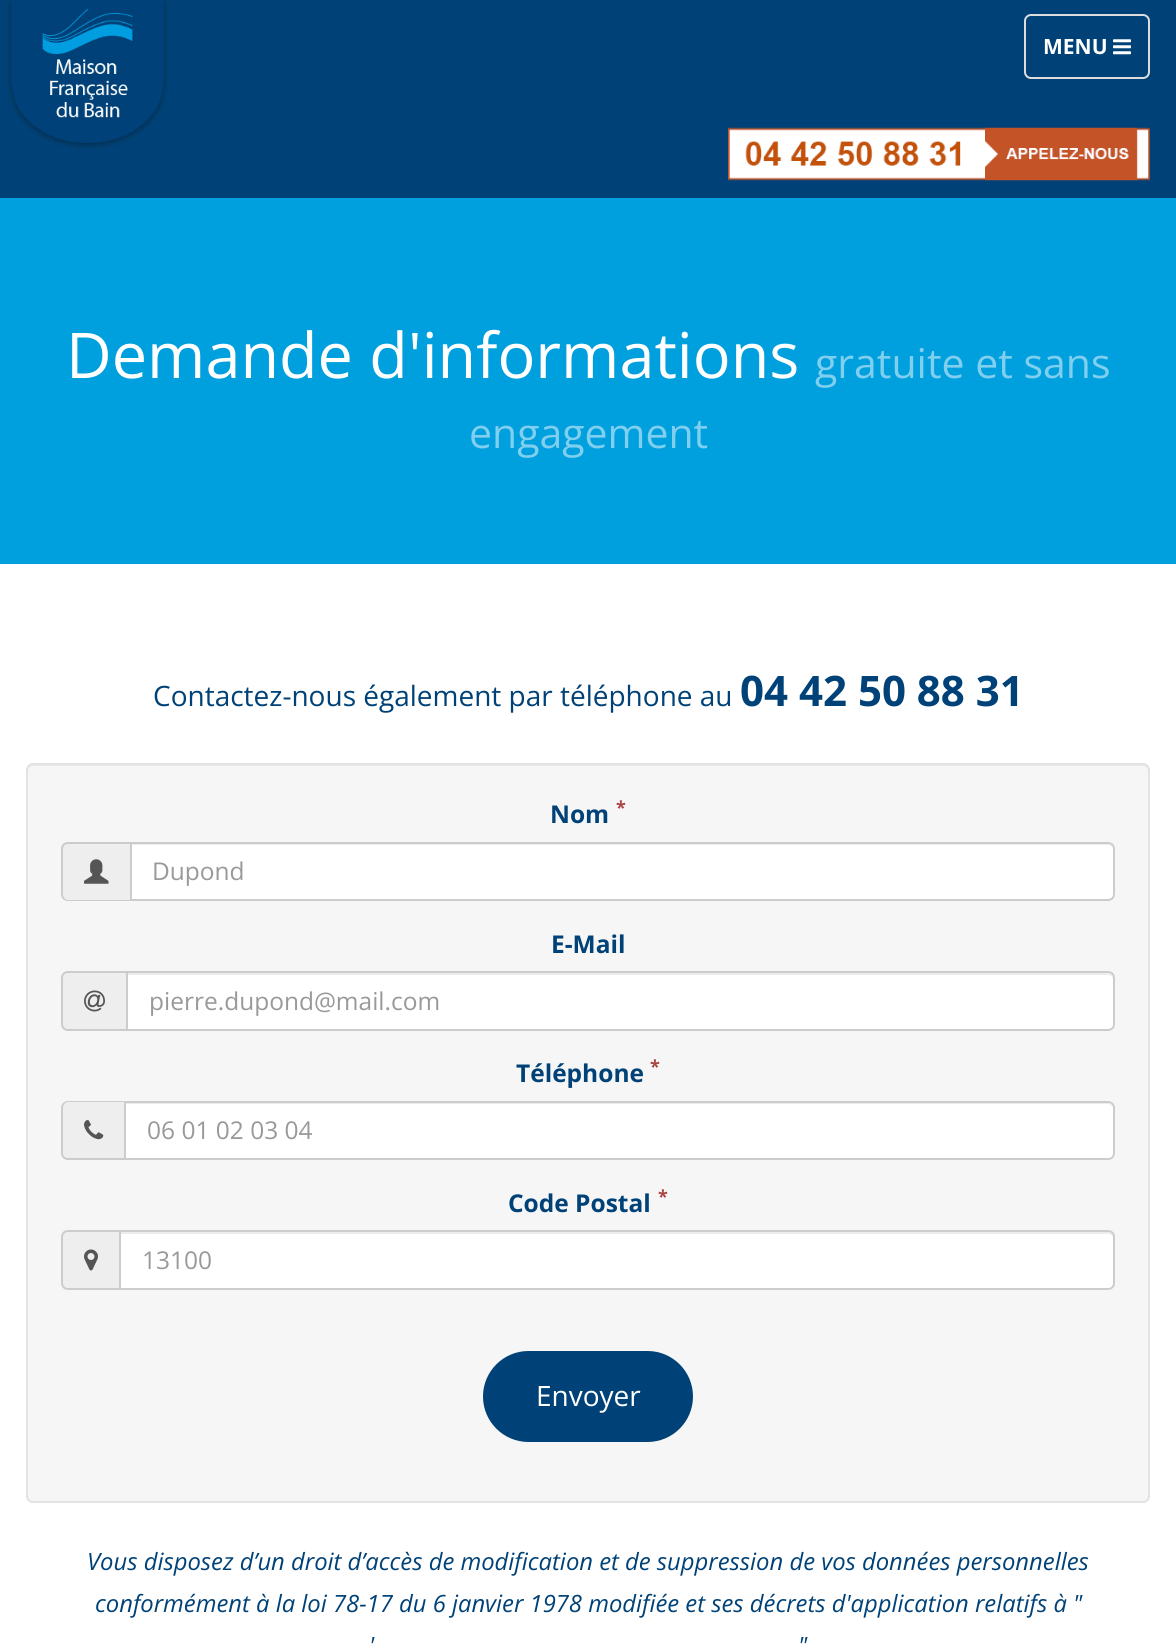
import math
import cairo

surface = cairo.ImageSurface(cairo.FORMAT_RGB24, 1176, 1645)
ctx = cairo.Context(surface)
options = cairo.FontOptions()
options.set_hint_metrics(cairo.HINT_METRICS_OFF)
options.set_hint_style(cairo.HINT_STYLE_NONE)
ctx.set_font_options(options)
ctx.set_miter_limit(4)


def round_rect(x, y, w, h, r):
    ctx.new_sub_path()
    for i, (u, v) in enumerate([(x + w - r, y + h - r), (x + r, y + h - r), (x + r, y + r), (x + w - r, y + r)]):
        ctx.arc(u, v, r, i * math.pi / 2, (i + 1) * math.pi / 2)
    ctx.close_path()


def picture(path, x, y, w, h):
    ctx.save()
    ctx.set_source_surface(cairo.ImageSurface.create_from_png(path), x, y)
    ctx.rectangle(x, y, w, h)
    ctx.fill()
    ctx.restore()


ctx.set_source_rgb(1, 1, 1)
ctx.paint()
ctx.set_source_rgb(0, 0.259, 0.467)
ctx.rectangle(0, 0, 1176, 198)
ctx.fill()
picture("img1.png", 7, 0, 161, 149)
round_rect(1025, 15, 124, 63, 6)
ctx.set_source_rgb(0.867, 0.867, 0.867)
ctx.stroke()
ctx.select_font_face("Open Sans", cairo.FONT_SLANT_NORMAL, cairo.FONT_WEIGHT_BOLD)
ctx.set_font_size(21)
ctx.set_source_rgb(1, 1, 1)
ctx.move_to(1043, 54)
ctx.show_text("MENU")
picture("img2.png", 1113, 39, 18, 16)
picture("img3.png", 728, 127, 422, 54)
ctx.set_source_rgb(0, 0.624, 0.871)
ctx.rectangle(0, 198, 1176, 366)
ctx.fill()
ctx.select_font_face("Open Sans")
ctx.set_font_size(63)
ctx.set_source_rgb(1, 1, 1)
ctx.move_to(66, 378)
ctx.show_text("Demande d'informations")
ctx.set_font_size(41)
ctx.set_source_rgb(0.502, 0.812, 0.937)
ctx.move_to(815, 378)
ctx.show_text("gratuite et sans")
ctx.move_to(469, 448)
ctx.show_text("engagement")
ctx.set_font_size(28)
ctx.set_source_rgb(0, 0.259, 0.467)
ctx.move_to(153, 706)
ctx.show_text("Contactez-nous également par téléphone au")
ctx.select_font_face("Open Sans", cairo.FONT_SLANT_NORMAL, cairo.FONT_WEIGHT_BOLD)
ctx.set_font_size(42)
ctx.move_to(740, 706)
ctx.show_text("04 42 50 88 31")
ctx.set_source_rgb(0.961, 0.961, 0.961)
round_rect(26, 763, 1124, 740, 7)
ctx.fill()
ctx.set_source_rgb(0.914, 0.914, 0.914)
ctx.new_path()
ctx.move_to(33, 766)
ctx.line_to(1143, 766)
ctx.curve_to(1146, 766, 1148, 769, 1148, 772)
ctx.line_to(1148, 770)
ctx.curve_to(1148, 767, 1146, 765, 1143, 765)
ctx.line_to(33, 765)
ctx.curve_to(30, 765, 28, 767, 28, 770)
ctx.line_to(28, 772)
ctx.curve_to(28, 769, 30, 766, 33, 766)
ctx.close_path()
ctx.fill()
round_rect(27, 764, 1122, 738, 6)
ctx.set_source_rgb(0.89, 0.89, 0.89)
ctx.stroke()
ctx.set_font_size(24.5)
ctx.set_source_rgb(0, 0.259, 0.467)
ctx.move_to(550, 823)
ctx.show_text("Nom")
ctx.set_font_size(18)
ctx.set_source_rgb(0.663, 0.267, 0.259)
ctx.move_to(616, 814)
ctx.show_text("*")
ctx.set_source_rgb(0.933, 0.933, 0.933)
ctx.new_path()
ctx.move_to(68, 842)
ctx.line_to(130, 842)
ctx.line_to(130, 901)
ctx.line_to(68, 901)
ctx.curve_to(64, 901, 61, 898, 61, 894)
ctx.line_to(61, 849)
ctx.curve_to(61, 845, 64, 842, 68, 842)
ctx.close_path()
ctx.fill()
ctx.set_source_rgb(0.8, 0.8, 0.8)
ctx.set_fill_rule(cairo.FILL_RULE_EVEN_ODD)
ctx.new_path()
ctx.move_to(68, 842)
ctx.line_to(130, 842)
ctx.line_to(130, 901)
ctx.line_to(68, 901)
ctx.curve_to(64, 901, 61, 898, 61, 894)
ctx.line_to(61, 849)
ctx.curve_to(61, 845, 64, 842, 68, 842)
ctx.close_path()
ctx.move_to(68, 844)
ctx.line_to(130, 844)
ctx.line_to(130, 900)
ctx.line_to(68, 900)
ctx.curve_to(65, 900, 63, 897, 63, 894)
ctx.line_to(63, 849)
ctx.curve_to(63, 846, 65, 844, 68, 844)
ctx.close_path()
ctx.fill()
picture("img4.png", 84, 859, 25, 25)
ctx.set_source_rgb(1, 1, 1)
ctx.new_path()
ctx.move_to(130, 842)
ctx.line_to(1108, 842)
ctx.curve_to(1112, 842, 1115, 845, 1115, 849)
ctx.line_to(1115, 894)
ctx.curve_to(1115, 898, 1112, 901, 1108, 901)
ctx.line_to(130, 901)
ctx.close_path()
ctx.fill()
ctx.set_source_rgb(0.925, 0.925, 0.925)
ctx.set_fill_rule(cairo.FILL_RULE_WINDING)
ctx.new_path()
ctx.move_to(131, 845)
ctx.line_to(1108, 845)
ctx.curve_to(1111, 845, 1113, 848, 1113, 850)
ctx.curve_to(1113, 847, 1111, 844, 1108, 844)
ctx.line_to(131, 844)
ctx.close_path()
ctx.fill()
ctx.new_path()
ctx.move_to(131, 843)
ctx.line_to(1108, 843)
ctx.curve_to(1111.5, 843, 1114, 845.5, 1114, 849)
ctx.line_to(1114, 894)
ctx.curve_to(1114, 897.5, 1111.5, 900, 1108, 900)
ctx.line_to(131, 900)
ctx.close_path()
ctx.set_source_rgb(0.8, 0.8, 0.8)
ctx.stroke()
ctx.select_font_face("Open Sans")
ctx.set_font_size(24.5)
ctx.set_source_rgb(0.6, 0.6, 0.6)
ctx.move_to(152, 880)
ctx.show_text("Dupond")
ctx.select_font_face("Open Sans", cairo.FONT_SLANT_NORMAL, cairo.FONT_WEIGHT_BOLD)
ctx.set_source_rgb(0, 0.259, 0.467)
ctx.move_to(551, 953)
ctx.show_text("E-Mail")
ctx.set_source_rgb(0.933, 0.933, 0.933)
ctx.new_path()
ctx.move_to(68, 971)
ctx.line_to(126, 971)
ctx.line_to(126, 1031)
ctx.line_to(68, 1031)
ctx.curve_to(64, 1031, 61, 1028, 61, 1024)
ctx.line_to(61, 978)
ctx.curve_to(61, 974, 64, 971, 68, 971)
ctx.close_path()
ctx.fill()
ctx.set_source_rgb(0.8, 0.8, 0.8)
ctx.set_fill_rule(cairo.FILL_RULE_EVEN_ODD)
ctx.new_path()
ctx.move_to(68, 971)
ctx.line_to(126, 971)
ctx.line_to(126, 1031)
ctx.line_to(68, 1031)
ctx.curve_to(64, 1031, 61, 1028, 61, 1024)
ctx.line_to(61, 978)
ctx.curve_to(61, 974, 64, 971, 68, 971)
ctx.close_path()
ctx.move_to(68, 973)
ctx.line_to(126, 973)
ctx.line_to(126, 1029)
ctx.line_to(68, 1029)
ctx.curve_to(65, 1029, 63, 1027, 63, 1024)
ctx.line_to(63, 978)
ctx.curve_to(63, 975, 65, 973, 68, 973)
ctx.close_path()
ctx.fill()
picture("img5.png", 84, 990, 21, 22)
ctx.set_source_rgb(1, 1, 1)
ctx.new_path()
ctx.move_to(126, 971)
ctx.line_to(1108, 971)
ctx.curve_to(1112, 971, 1115, 974, 1115, 978)
ctx.line_to(1115, 1024)
ctx.curve_to(1115, 1028, 1112, 1031, 1108, 1031)
ctx.line_to(126, 1031)
ctx.close_path()
ctx.fill()
ctx.set_source_rgb(0.925, 0.925, 0.925)
ctx.set_fill_rule(cairo.FILL_RULE_WINDING)
ctx.new_path()
ctx.move_to(128, 975)
ctx.line_to(1108, 975)
ctx.curve_to(1111, 975, 1113, 977, 1113, 980)
ctx.curve_to(1113, 977, 1112, 973, 1108, 973)
ctx.line_to(128, 973)
ctx.close_path()
ctx.fill()
ctx.new_path()
ctx.move_to(127, 972)
ctx.line_to(1108, 972)
ctx.curve_to(1111.5, 972, 1114, 974.5, 1114, 978)
ctx.line_to(1114, 1024)
ctx.curve_to(1114, 1027.5, 1111.5, 1030, 1108, 1030)
ctx.line_to(127, 1030)
ctx.close_path()
ctx.set_source_rgb(0.8, 0.8, 0.8)
ctx.stroke()
ctx.select_font_face("Open Sans")
ctx.set_source_rgb(0.6, 0.6, 0.6)
ctx.move_to(149, 1010)
ctx.show_text("pierre.dupond@mail.com")
ctx.select_font_face("Open Sans", cairo.FONT_SLANT_NORMAL, cairo.FONT_WEIGHT_BOLD)
ctx.set_source_rgb(0, 0.259, 0.467)
ctx.move_to(516, 1082)
ctx.show_text("Téléphone")
ctx.set_font_size(18)
ctx.set_source_rgb(0.663, 0.267, 0.259)
ctx.move_to(650, 1073)
ctx.show_text("*")
ctx.set_source_rgb(0.933, 0.933, 0.933)
ctx.new_path()
ctx.move_to(68, 1101)
ctx.line_to(124, 1101)
ctx.line_to(124, 1160)
ctx.line_to(68, 1160)
ctx.curve_to(64, 1160, 61, 1157, 61, 1153)
ctx.line_to(61, 1108)
ctx.curve_to(61, 1104, 64, 1101, 68, 1101)
ctx.close_path()
ctx.fill()
ctx.set_source_rgb(0.8, 0.8, 0.8)
ctx.set_fill_rule(cairo.FILL_RULE_EVEN_ODD)
ctx.new_path()
ctx.move_to(68, 1101)
ctx.line_to(124, 1101)
ctx.line_to(124, 1160)
ctx.line_to(68, 1160)
ctx.curve_to(64, 1160, 61, 1157, 61, 1153)
ctx.line_to(61, 1108)
ctx.curve_to(61, 1104, 64, 1101, 68, 1101)
ctx.close_path()
ctx.move_to(68, 1102)
ctx.line_to(124, 1102)
ctx.line_to(124, 1158)
ctx.line_to(68, 1158)
ctx.curve_to(65, 1158, 63, 1156, 63, 1153)
ctx.line_to(63, 1108)
ctx.curve_to(63, 1105, 65, 1102, 68, 1102)
ctx.close_path()
ctx.fill()
picture("img6.png", 84, 1120, 20, 20)
ctx.set_source_rgb(1, 1, 1)
ctx.new_path()
ctx.move_to(124, 1101)
ctx.line_to(1108, 1101)
ctx.curve_to(1112, 1101, 1115, 1104, 1115, 1108)
ctx.line_to(1115, 1153)
ctx.curve_to(1115, 1157, 1112, 1160, 1108, 1160)
ctx.line_to(124, 1160)
ctx.close_path()
ctx.fill()
ctx.set_source_rgb(0.925, 0.925, 0.925)
ctx.set_fill_rule(cairo.FILL_RULE_WINDING)
ctx.new_path()
ctx.move_to(126, 1104)
ctx.line_to(1108, 1104)
ctx.curve_to(1111, 1104, 1113, 1107, 1113, 1110)
ctx.curve_to(1113, 1107, 1112, 1103, 1108, 1103)
ctx.line_to(126, 1103)
ctx.close_path()
ctx.fill()
ctx.new_path()
ctx.move_to(125, 1102)
ctx.line_to(1108, 1102)
ctx.curve_to(1111.5, 1102, 1114, 1104.5, 1114, 1108)
ctx.line_to(1114, 1153)
ctx.curve_to(1114, 1156.5, 1111.5, 1159, 1108, 1159)
ctx.line_to(125, 1159)
ctx.close_path()
ctx.set_source_rgb(0.8, 0.8, 0.8)
ctx.stroke()
ctx.select_font_face("Open Sans")
ctx.set_font_size(24.5)
ctx.set_source_rgb(0.6, 0.6, 0.6)
ctx.move_to(147, 1139)
ctx.show_text("06 01 02 03 04")
ctx.select_font_face("Open Sans", cairo.FONT_SLANT_NORMAL, cairo.FONT_WEIGHT_BOLD)
ctx.set_source_rgb(0, 0.259, 0.467)
ctx.move_to(508, 1212)
ctx.show_text("Code Postal")
ctx.set_font_size(18)
ctx.set_source_rgb(0.663, 0.267, 0.259)
ctx.move_to(658, 1203)
ctx.show_text("*")
ctx.set_source_rgb(0.933, 0.933, 0.933)
ctx.new_path()
ctx.move_to(68, 1230)
ctx.line_to(119, 1230)
ctx.line_to(119, 1290)
ctx.line_to(68, 1290)
ctx.curve_to(64, 1290, 61, 1287, 61, 1283)
ctx.line_to(61, 1237)
ctx.curve_to(61, 1233, 64, 1230, 68, 1230)
ctx.close_path()
ctx.fill()
ctx.set_source_rgb(0.8, 0.8, 0.8)
ctx.set_fill_rule(cairo.FILL_RULE_EVEN_ODD)
ctx.new_path()
ctx.move_to(68, 1230)
ctx.line_to(119, 1230)
ctx.line_to(119, 1290)
ctx.line_to(68, 1290)
ctx.curve_to(64, 1290, 61, 1287, 61, 1283)
ctx.line_to(61, 1237)
ctx.curve_to(61, 1233, 64, 1230, 68, 1230)
ctx.close_path()
ctx.move_to(68, 1232)
ctx.line_to(119, 1232)
ctx.line_to(119, 1288)
ctx.line_to(68, 1288)
ctx.curve_to(65, 1288, 63, 1286, 63, 1283)
ctx.line_to(63, 1237)
ctx.curve_to(63, 1234, 65, 1232, 68, 1232)
ctx.close_path()
ctx.fill()
picture("img7.png", 84, 1249, 14, 22)
ctx.set_source_rgb(1, 1, 1)
ctx.new_path()
ctx.move_to(119, 1230)
ctx.line_to(1108, 1230)
ctx.curve_to(1112, 1230, 1115, 1233, 1115, 1237)
ctx.line_to(1115, 1283)
ctx.curve_to(1115, 1287, 1112, 1290, 1108, 1290)
ctx.line_to(119, 1290)
ctx.close_path()
ctx.fill()
ctx.set_source_rgb(0.925, 0.925, 0.925)
ctx.set_fill_rule(cairo.FILL_RULE_WINDING)
ctx.new_path()
ctx.move_to(121, 1234)
ctx.line_to(1108, 1234)
ctx.curve_to(1111, 1234, 1113, 1236, 1113, 1239)
ctx.curve_to(1113, 1236, 1112, 1232, 1108, 1232)
ctx.line_to(121, 1232)
ctx.close_path()
ctx.fill()
ctx.new_path()
ctx.move_to(120, 1231)
ctx.line_to(1108, 1231)
ctx.curve_to(1111.5, 1231, 1114, 1233.5, 1114, 1237)
ctx.line_to(1114, 1283)
ctx.curve_to(1114, 1286.5, 1111.5, 1289, 1108, 1289)
ctx.line_to(120, 1289)
ctx.close_path()
ctx.set_source_rgb(0.8, 0.8, 0.8)
ctx.stroke()
ctx.select_font_face("Open Sans")
ctx.set_font_size(24.5)
ctx.set_source_rgb(0.6, 0.6, 0.6)
ctx.move_to(142, 1269)
ctx.show_text("13100")
ctx.set_source_rgb(0, 0.259, 0.467)
round_rect(483, 1351, 210, 91, 45.5)
ctx.fill()
ctx.set_font_size(28)
ctx.set_source_rgb(1, 1, 1)
ctx.move_to(536, 1406)
ctx.show_text("Envoyer")
ctx.select_font_face("Open Sans", cairo.FONT_SLANT_ITALIC)
ctx.set_font_size(23.8)
ctx.set_source_rgb(0, 0.259, 0.467)
ctx.move_to(87, 1570)
ctx.show_text("Vous disposez d’un droit d’accès de modification et de suppression de vos données personnelles")
ctx.move_to(95, 1612)
ctx.show_text("conformément à la loi 78-17 du 6 janvier 1978 modifiée et ses décrets d'application relatifs à \"")
ctx.move_to(369, 1654)
ctx.show_text("'")
ctx.move_to(798, 1654)
ctx.show_text("\"")
surface.write_to_png("page.png")
